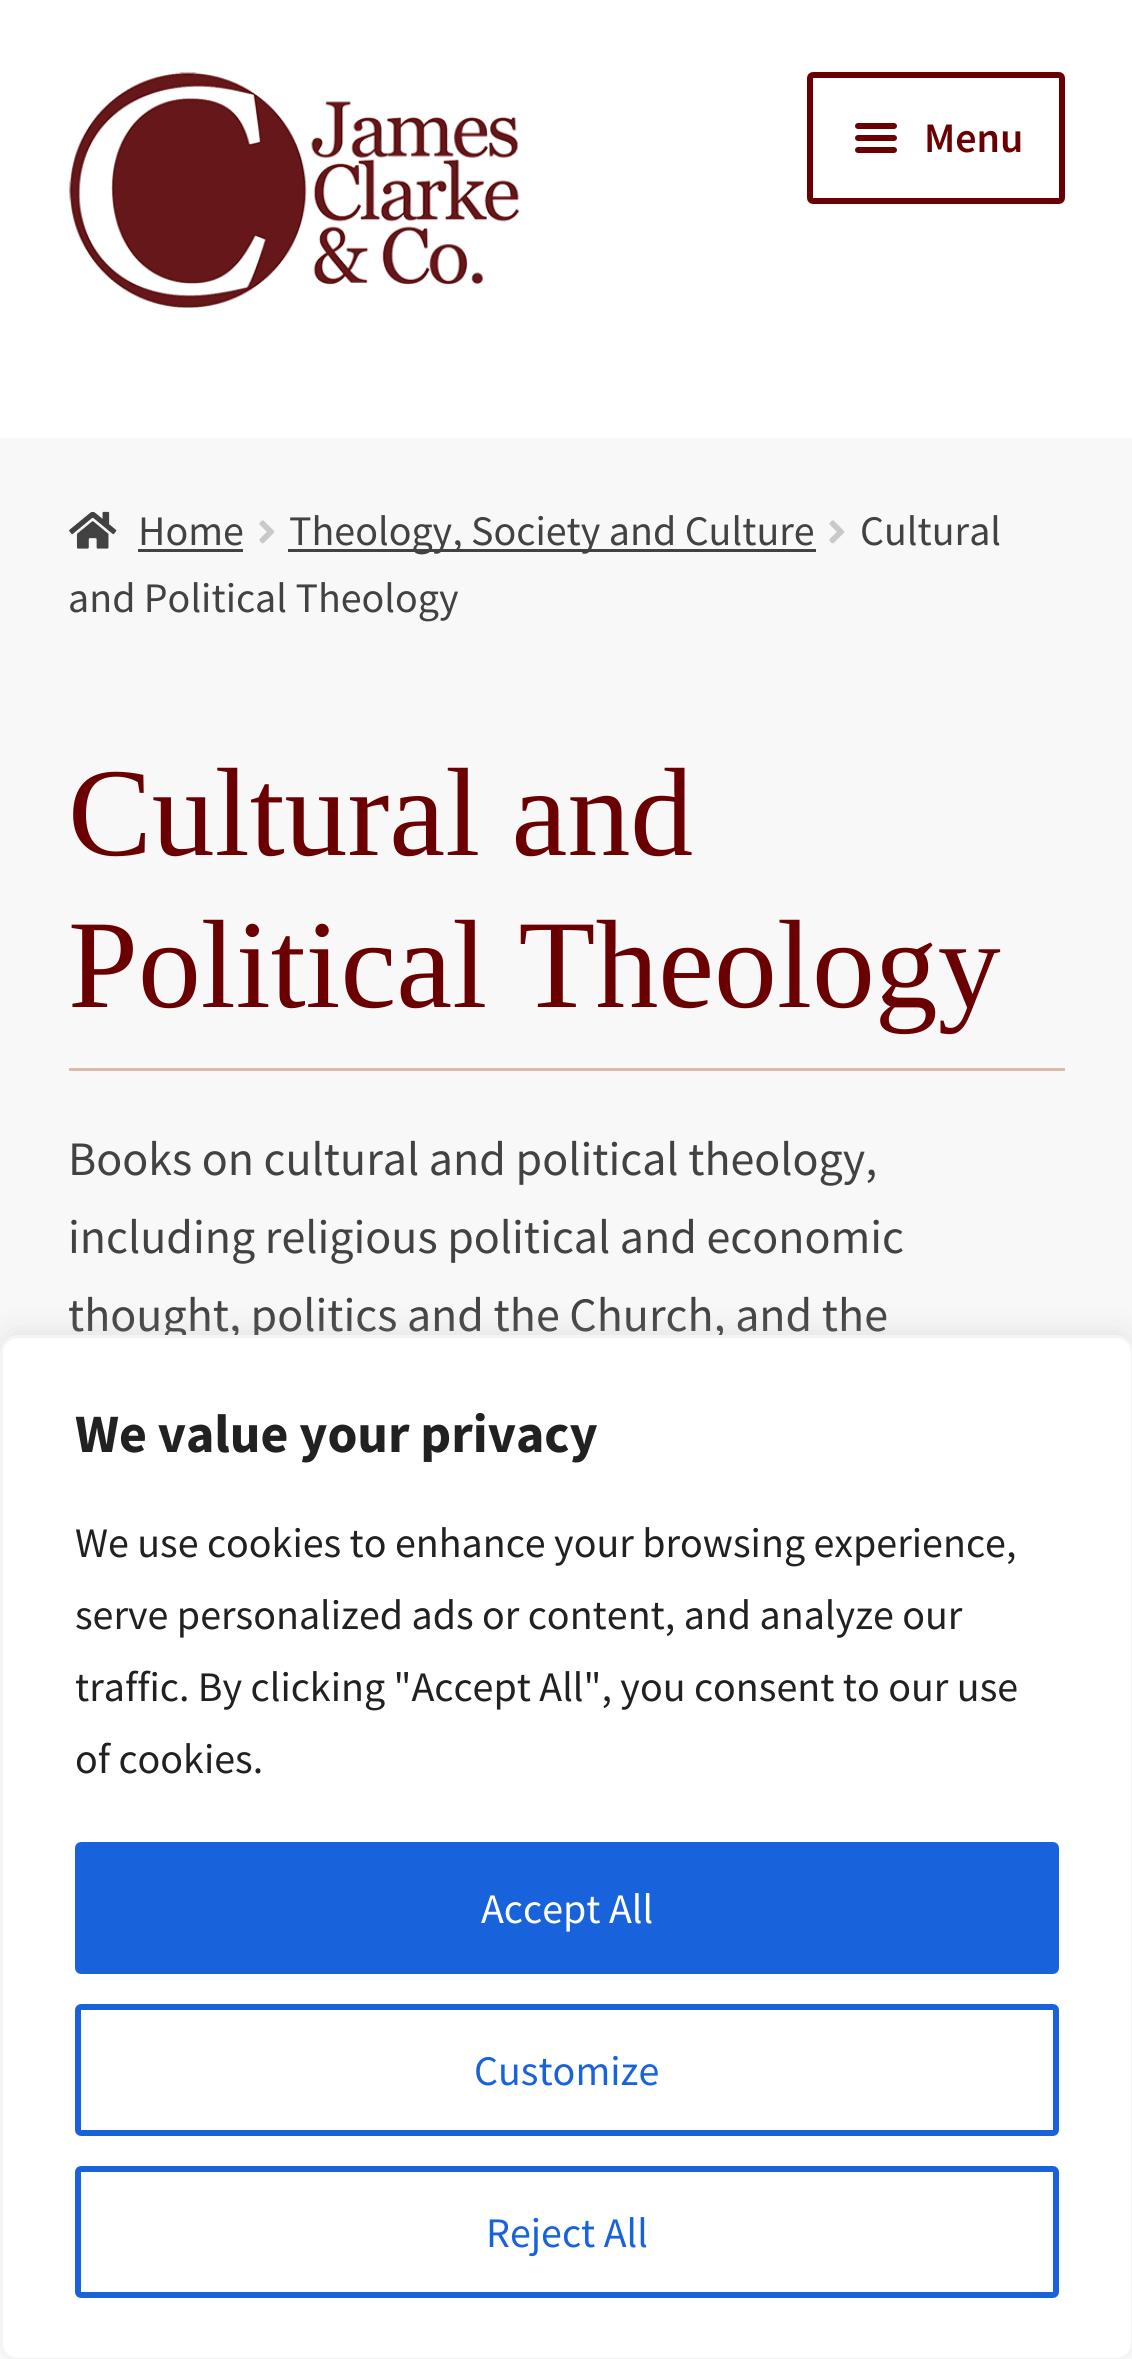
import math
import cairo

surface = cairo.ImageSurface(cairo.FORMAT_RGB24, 1132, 2359)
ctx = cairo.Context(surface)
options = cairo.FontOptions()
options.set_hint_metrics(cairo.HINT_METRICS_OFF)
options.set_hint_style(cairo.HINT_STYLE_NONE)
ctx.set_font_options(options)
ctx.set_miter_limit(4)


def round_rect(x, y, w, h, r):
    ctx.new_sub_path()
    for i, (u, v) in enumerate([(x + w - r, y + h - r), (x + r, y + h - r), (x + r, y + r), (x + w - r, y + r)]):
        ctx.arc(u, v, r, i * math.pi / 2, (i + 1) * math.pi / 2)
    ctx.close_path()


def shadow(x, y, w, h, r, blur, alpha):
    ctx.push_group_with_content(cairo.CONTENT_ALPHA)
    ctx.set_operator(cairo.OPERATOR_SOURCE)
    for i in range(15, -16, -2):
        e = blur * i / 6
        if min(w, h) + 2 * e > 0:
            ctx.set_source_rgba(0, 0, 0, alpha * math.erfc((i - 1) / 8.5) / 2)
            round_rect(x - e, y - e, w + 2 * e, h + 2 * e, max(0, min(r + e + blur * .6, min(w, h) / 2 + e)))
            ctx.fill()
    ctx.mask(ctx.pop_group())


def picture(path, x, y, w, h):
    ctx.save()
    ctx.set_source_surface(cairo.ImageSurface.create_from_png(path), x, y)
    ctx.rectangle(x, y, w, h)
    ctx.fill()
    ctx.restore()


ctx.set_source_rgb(0.969, 0.969, 0.969)
ctx.paint()
ctx.set_source_rgb(1, 1, 1)
ctx.rectangle(0, 0, 1132, 438)
ctx.fill()
picture("img1.png", 69, 72, 451, 236)
round_rect(810, 75, 252, 126, 3)
ctx.set_source_rgb(0.416, 0, 0.008)
ctx.set_line_width(6)
ctx.stroke()
round_rect(855, 123, 42, 6, 3)
ctx.fill()
round_rect(855, 135, 42, 6, 3)
ctx.fill()
ctx.select_font_face("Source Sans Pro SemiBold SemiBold")
ctx.set_font_size(42)
ctx.move_to(924, 152)
ctx.show_text("Menu")
round_rect(855, 147, 42, 6, 3)
ctx.fill()
picture("img2.png", 69, 511, 48, 38)
ctx.select_font_face("Source Sans Pro")
ctx.set_source_rgb(0.259, 0.259, 0.259)
ctx.move_to(138, 545)
ctx.show_text("Home")
ctx.rectangle(138, 549, 105, 3)
ctx.fill()
picture("img3.png", 259, 520, 16, 24)
ctx.rectangle(288, 549, 528, 3)
ctx.fill()
ctx.move_to(289, 545)
ctx.show_text("Theology, Society and Culture")
picture("img3.png", 829, 520, 16, 24)
ctx.move_to(860, 545)
ctx.show_text("Cultural")
ctx.move_to(68, 612)
ctx.show_text("and Political Theology")
ctx.set_source_rgb(0.867, 0.733, 0.667)
ctx.rectangle(69, 1068, 996, 3)
ctx.fill()
ctx.select_font_face("Liberation Serif")
ctx.set_font_size(125.75)
ctx.set_source_rgb(0.416, 0, 0.008)
ctx.move_to(68, 855)
ctx.show_text("Cultural and")
ctx.move_to(68, 1007)
ctx.show_text("Political Theology")
ctx.select_font_face("Source Sans Pro")
ctx.set_font_size(48)
ctx.set_source_rgb(0.259, 0.259, 0.259)
ctx.move_to(68, 1175)
ctx.show_text("Books on cultural and political theology,")
ctx.move_to(68, 1253)
ctx.show_text("including religious political and economic")
ctx.move_to(68, 1331)
ctx.show_text("thought, politics and the Church, and the")
ctx.set_source_rgb(1, 1, 1)
ctx.rectangle(0, 2343, 10, 16)
ctx.fill()
ctx.rectangle(1124, 2351, 8, 8)
ctx.fill()
ctx.set_source_rgb(0.675, 0.671, 0.671)
shadow(0, 1332, 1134, 1026, 18, 15, 0.3)
ctx.set_source_rgb(1, 1, 1)
round_rect(1.5, 1336.5, 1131, 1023, 16.5)
ctx.fill_preserve()
ctx.set_source_rgb(0.957, 0.957, 0.957)
ctx.set_line_width(3)
ctx.stroke()
ctx.select_font_face("Source Sans Pro", cairo.FONT_SLANT_NORMAL, cairo.FONT_WEIGHT_BOLD)
ctx.set_font_size(54)
ctx.set_source_rgb(0.129, 0.129, 0.129)
ctx.move_to(75, 1452)
ctx.show_text("We value your privacy")
ctx.select_font_face("Source Sans Pro")
ctx.set_font_size(42)
ctx.move_to(75, 1557)
ctx.show_text("We use cookies to enhance your browsing experience,")
ctx.move_to(75, 1629)
ctx.show_text("serve personalized ads or content, and analyze our")
ctx.move_to(75, 1701)
ctx.show_text("traffic. By clicking \"Accept All\", you consent to our use")
ctx.move_to(75, 1773)
ctx.show_text("of cookies.")
ctx.set_source_rgb(0.094, 0.388, 0.863)
round_rect(78, 1845, 978, 126, 3)
ctx.fill_preserve()
ctx.set_line_width(6)
ctx.stroke()
ctx.set_source_rgb(1, 1, 1)
ctx.move_to(481, 1923)
ctx.show_text("Accept All")
round_rect(78, 2007, 978, 126, 3)
ctx.set_source_rgb(0.094, 0.388, 0.863)
ctx.stroke()
ctx.move_to(474, 2085)
ctx.show_text("Customize")
round_rect(78, 2169, 978, 126, 3)
ctx.stroke()
ctx.move_to(486, 2247)
ctx.show_text("Reject All")
surface.write_to_png("page.png")
